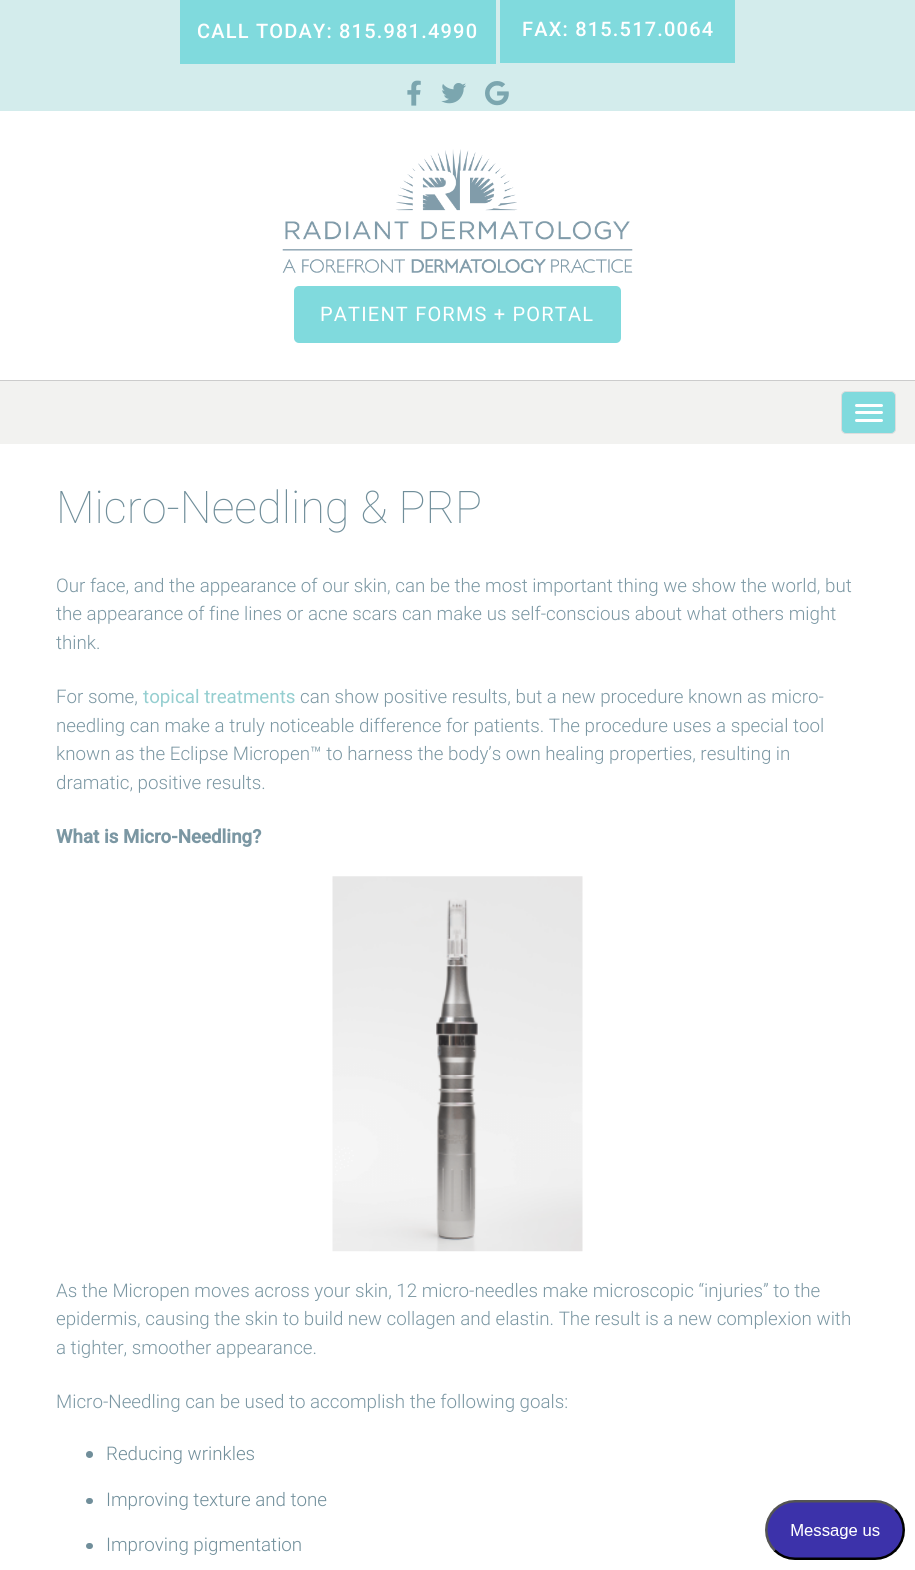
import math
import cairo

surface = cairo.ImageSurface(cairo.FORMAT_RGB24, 915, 1570)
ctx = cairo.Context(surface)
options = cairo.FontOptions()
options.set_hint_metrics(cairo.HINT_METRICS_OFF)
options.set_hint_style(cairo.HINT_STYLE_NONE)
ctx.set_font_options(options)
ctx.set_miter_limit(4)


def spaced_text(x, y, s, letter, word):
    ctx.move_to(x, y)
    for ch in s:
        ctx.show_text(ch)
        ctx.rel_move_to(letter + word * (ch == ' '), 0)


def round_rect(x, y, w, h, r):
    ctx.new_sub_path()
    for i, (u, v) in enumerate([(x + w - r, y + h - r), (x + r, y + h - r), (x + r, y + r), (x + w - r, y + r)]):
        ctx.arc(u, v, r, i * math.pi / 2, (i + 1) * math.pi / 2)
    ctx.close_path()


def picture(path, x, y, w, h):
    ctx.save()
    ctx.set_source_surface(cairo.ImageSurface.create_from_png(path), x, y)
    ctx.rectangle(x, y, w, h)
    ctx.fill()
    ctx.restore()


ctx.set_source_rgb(1, 1, 1)
ctx.paint()
ctx.set_source_rgb(0.827, 0.922, 0.922)
ctx.rectangle(0, 0, 915, 111)
ctx.fill()
ctx.set_source_rgb(0.502, 0.855, 0.867)
ctx.rectangle(180, 0, 316, 64)
ctx.fill()
ctx.select_font_face("Roboto Medium")
ctx.set_font_size(20)
ctx.set_source_rgb(1, 1, 1)
spaced_text(197, 38, "CALL TODAY: 815.981.4990", 1.2, 0)
ctx.set_source_rgb(0.502, 0.855, 0.867)
ctx.rectangle(500, 0, 235, 63)
ctx.fill()
ctx.set_source_rgb(1, 1, 1)
spaced_text(522, 36, "FAX: 815.517.0064", 1.2, 0)
picture("img1.png", 407, 80, 14, 26)
picture("img2.png", 441, 83, 25, 21)
picture("img3.png", 485, 81, 24, 25)
picture("img4.png", 282, 149, 351, 125)
ctx.set_source_rgb(0.502, 0.855, 0.867)
round_rect(294, 286, 327, 57, 5)
ctx.fill()
ctx.select_font_face("Roboto")
ctx.set_source_rgb(1, 1, 1)
spaced_text(320, 321, "PATIENT FORMS + PORTAL", 1.2, 0)
ctx.set_source_rgb(0.949, 0.949, 0.941)
ctx.rectangle(0, 381, 915, 63)
ctx.fill()
ctx.set_source_rgb(0.8, 0.8, 0.8)
ctx.rectangle(0, 380, 915, 1)
ctx.fill()
ctx.set_source_rgb(0.502, 0.855, 0.867)
round_rect(841.5, 391.5, 54, 42, 4.5)
ctx.fill_preserve()
ctx.set_source_rgb(0.867, 0.867, 0.867)
ctx.set_line_width(1)
ctx.stroke()
ctx.set_source_rgb(1, 1, 1)
round_rect(855, 404, 28, 3, 1.5)
ctx.fill()
round_rect(855, 411, 28, 3, 1.5)
ctx.fill()
round_rect(855, 419, 28, 3, 1.5)
ctx.fill()
ctx.select_font_face("Roboto Thin")
ctx.set_font_size(45)
ctx.set_source_rgb(0.439, 0.557, 0.604)
ctx.move_to(56, 523)
ctx.show_text("Micro-Needling & PRP")
ctx.select_font_face("Roboto Light")
ctx.set_font_size(18.75)
ctx.set_source_rgb(0.482, 0.592, 0.639)
ctx.move_to(56, 592)
ctx.show_text("Our face, and the appearance of our skin, can be the most important thing we show the world, but")
ctx.move_to(56, 620)
ctx.show_text("the appearance of fine lines or acne scars can make us self-conscious about what others might")
ctx.move_to(56, 649)
ctx.show_text("think.")
ctx.move_to(56, 703)
ctx.show_text("For some,")
ctx.select_font_face("Roboto")
ctx.set_source_rgb(0.584, 0.808, 0.816)
ctx.move_to(143, 703)
ctx.show_text("topical treatments")
ctx.select_font_face("Roboto Light")
ctx.set_source_rgb(0.482, 0.592, 0.639)
ctx.move_to(300, 703)
ctx.show_text("can show positive results, but a new procedure known as micro-")
ctx.move_to(56, 732)
ctx.show_text("needling can make a truly noticeable difference for patients. The procedure uses a special tool")
ctx.move_to(56, 760)
ctx.show_text("known as the Eclipse Micropen™ to harness the body’s own healing properties, resulting in")
ctx.move_to(56, 789)
ctx.show_text("dramatic, positive results.")
ctx.select_font_face("Roboto", cairo.FONT_SLANT_NORMAL, cairo.FONT_WEIGHT_BOLD)
ctx.move_to(56, 843)
ctx.show_text("What is Micro-Needling?")
picture("img5.png", 332, 876, 251, 376)
ctx.select_font_face("Roboto Light")
ctx.move_to(56, 1297)
ctx.show_text("As the Micropen moves across your skin, 12 micro-needles make microscopic “injuries” to the")
ctx.move_to(56, 1325)
ctx.show_text("epidermis, causing the skin to build new collagen and elastin. The result is a new complexion with")
ctx.move_to(56, 1354)
ctx.show_text("a tighter, smoother appearance.")
ctx.move_to(56, 1408)
ctx.show_text("Micro-Needling can be used to accomplish the following goals:")
ctx.set_source_rgb(0.439, 0.557, 0.604)
ctx.new_path()
ctx.arc(89.5, 1454.5, 3.5, 0, 2 * math.pi)
ctx.fill()
ctx.move_to(106, 1460)
ctx.show_text("Reducing wrinkles")
round_rect(86, 1498, 7, 6, 3)
ctx.fill()
ctx.move_to(106, 1506)
ctx.show_text("Improving texture and tone")
round_rect(86, 1543, 7, 6, 3)
ctx.fill()
ctx.move_to(106, 1551)
ctx.show_text("Improving pigmentation")
picture("img6.png", 765, 1500, 140, 60)
surface.write_to_png("page.png")
